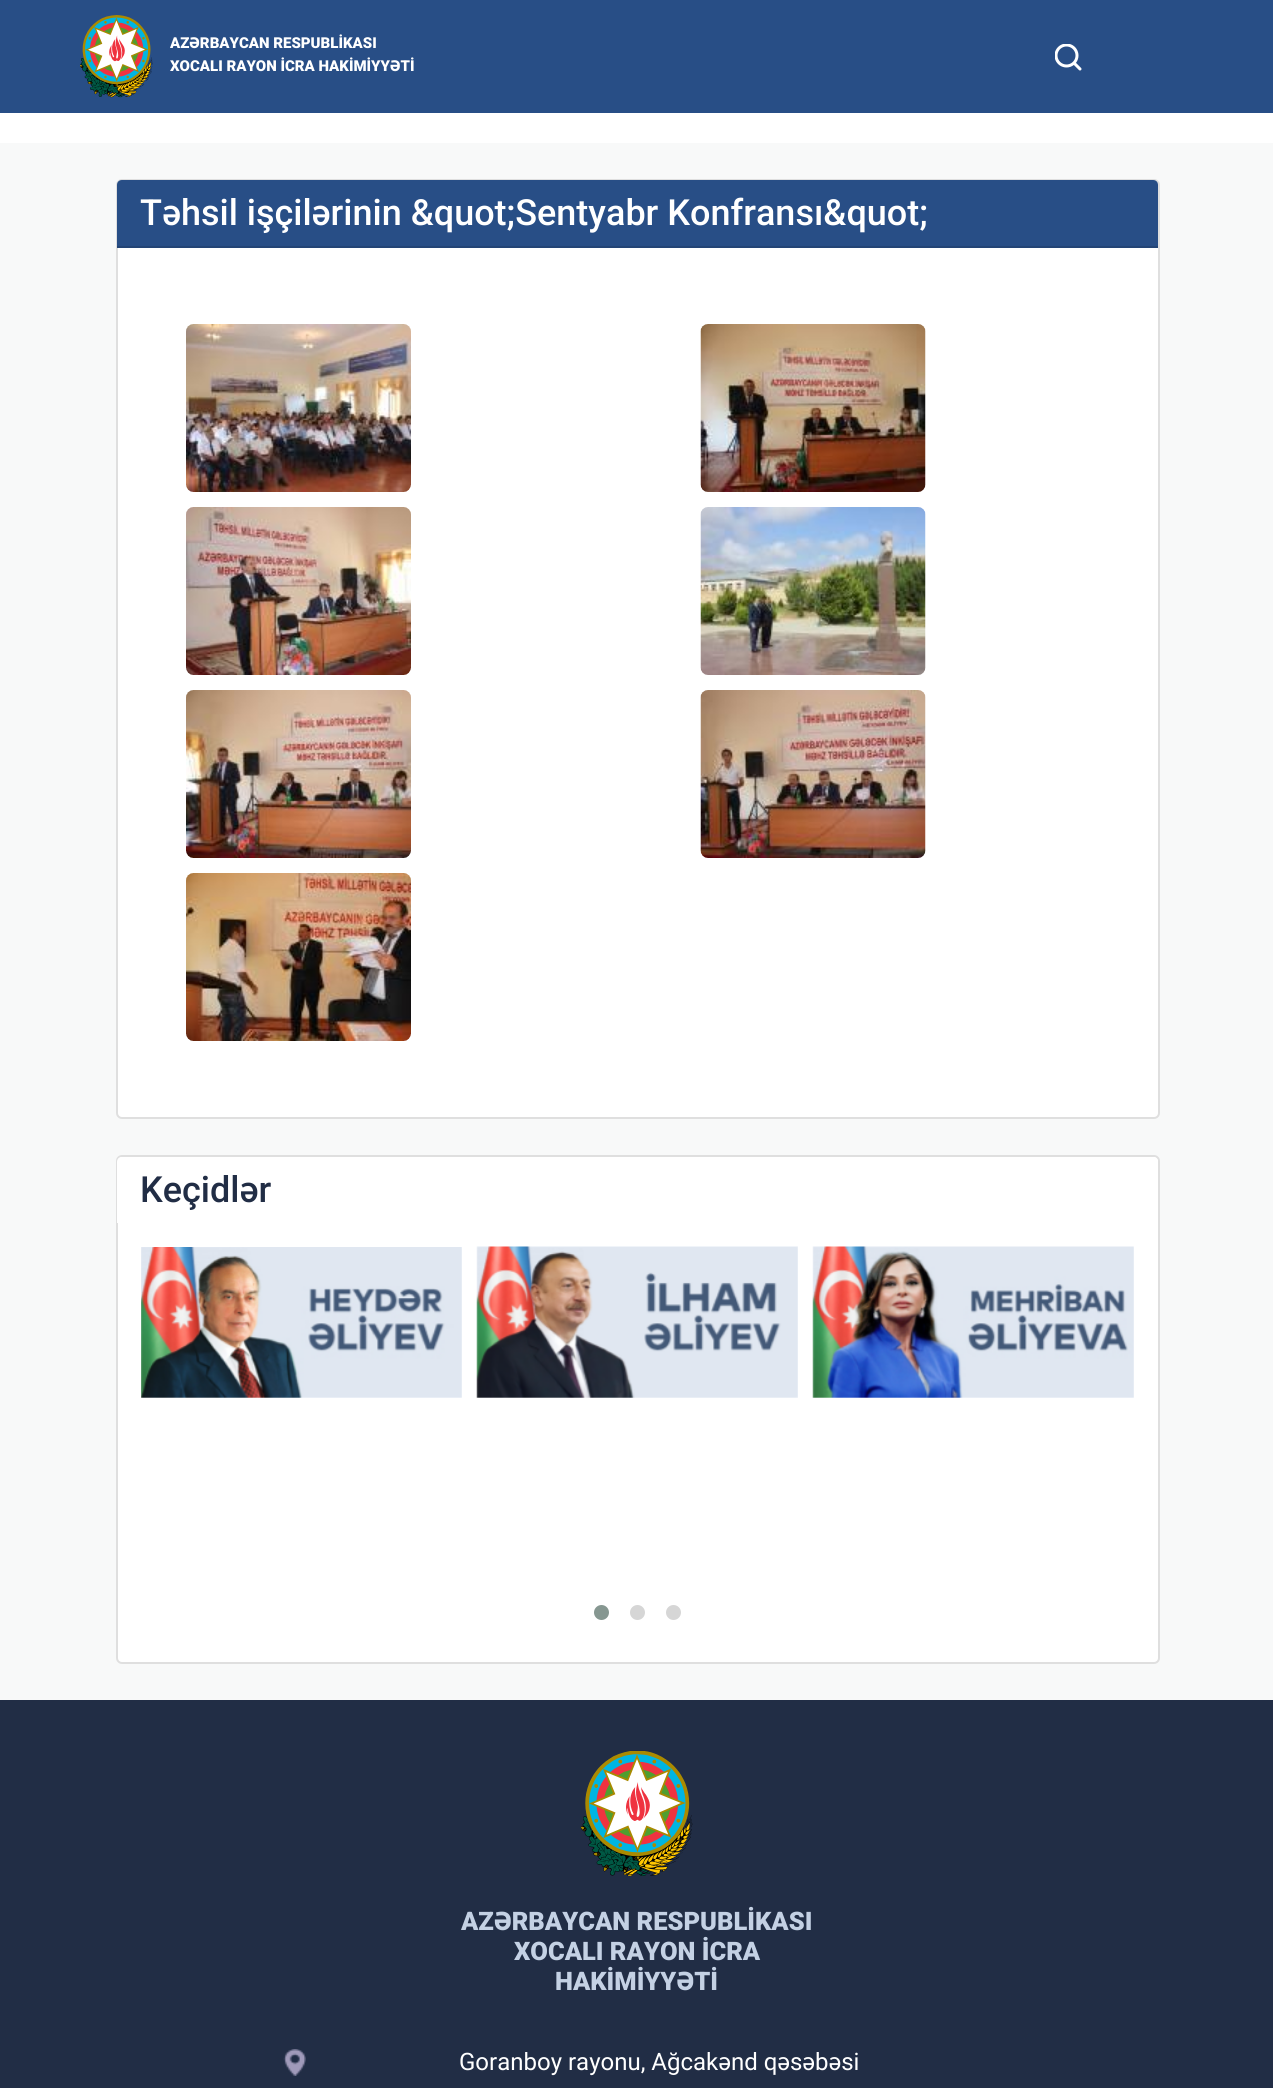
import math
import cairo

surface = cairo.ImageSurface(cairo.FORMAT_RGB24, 1273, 2088)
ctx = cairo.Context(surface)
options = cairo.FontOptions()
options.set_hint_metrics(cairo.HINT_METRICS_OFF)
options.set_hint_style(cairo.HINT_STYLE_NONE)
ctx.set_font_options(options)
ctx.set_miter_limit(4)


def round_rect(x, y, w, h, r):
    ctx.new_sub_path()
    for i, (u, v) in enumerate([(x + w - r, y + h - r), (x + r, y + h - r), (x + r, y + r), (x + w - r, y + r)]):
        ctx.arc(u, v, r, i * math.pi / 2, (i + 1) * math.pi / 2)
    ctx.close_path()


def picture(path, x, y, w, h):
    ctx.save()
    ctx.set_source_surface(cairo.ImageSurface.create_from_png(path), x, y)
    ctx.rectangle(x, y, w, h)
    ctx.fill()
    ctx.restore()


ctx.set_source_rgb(0.969, 0.973, 0.976)
ctx.paint()
ctx.set_source_rgb(0.157, 0.306, 0.525)
ctx.rectangle(0, 0, 1273, 113)
ctx.fill()
picture("img1.png", 80, 15, 73, 83)
ctx.select_font_face("Roboto Black")
ctx.set_font_size(15)
ctx.set_source_rgb(1, 1, 1)
ctx.move_to(170, 48)
ctx.show_text("AZƏRBAYCAN RESPUBLİKASI")
ctx.move_to(170, 71)
ctx.show_text("XOCALI RAYON İCRA HAKİMİYYƏTİ")
picture("img2.png", 1055, 44, 27, 27)
ctx.rectangle(0, 113, 1273, 30)
ctx.fill()
round_rect(117, 180, 1042, 938, 5)
ctx.fill_preserve()
ctx.set_source_rgb(0.875, 0.875, 0.875)
ctx.stroke()
ctx.set_source_rgb(0.157, 0.306, 0.525)
ctx.new_path()
ctx.move_to(122, 180)
ctx.line_to(1153, 180)
ctx.curve_to(1156, 180, 1158, 182, 1158, 185)
ctx.line_to(1158, 248)
ctx.line_to(117, 248)
ctx.line_to(117, 185)
ctx.curve_to(117, 182, 119, 180, 122, 180)
ctx.close_path()
ctx.fill()
ctx.set_source_rgb(0.137, 0.267, 0.459)
ctx.rectangle(117, 246, 1041, 2)
ctx.fill()
ctx.select_font_face("Roboto Medium")
ctx.set_font_size(36)
ctx.set_source_rgb(1, 1, 1)
ctx.move_to(140, 225)
ctx.show_text("Təhsil işçilərinin &quot;Sentyabr Konfransı&quot;")
picture("img3.png", 186, 324, 225, 168)
picture("img4.png", 700, 324, 226, 168)
picture("img5.png", 186, 507, 225, 168)
picture("img6.png", 700, 507, 226, 168)
picture("img7.png", 186, 690, 225, 168)
picture("img8.png", 700, 690, 226, 168)
picture("img9.png", 186, 873, 225, 168)
round_rect(117, 1156, 1042, 507, 5)
ctx.fill_preserve()
ctx.set_source_rgb(0.875, 0.875, 0.875)
ctx.stroke()
ctx.set_source_rgb(1, 1, 1)
ctx.new_path()
ctx.move_to(122, 1157)
ctx.line_to(1153, 1157)
ctx.curve_to(1156, 1157, 1158, 1159, 1158, 1162)
ctx.line_to(1158, 1223)
ctx.line_to(117, 1223)
ctx.line_to(117, 1162)
ctx.curve_to(117, 1159, 119, 1157, 122, 1157)
ctx.close_path()
ctx.fill()
ctx.set_source_rgb(0.129, 0.176, 0.271)
ctx.move_to(140, 1202)
ctx.show_text("Keçidlər")
picture("img10.png", 141, 1247, 321, 151)
picture("img11.png", 476, 1246, 322, 152)
picture("img12.png", 812, 1246, 322, 152)
ctx.set_source_rgb(0.525, 0.592, 0.569)
ctx.arc(601.5, 1612.5, 7.5, 0, 2 * math.pi)
ctx.fill()
ctx.set_source_rgb(0.839, 0.839, 0.839)
ctx.arc(637.5, 1612.5, 7.5, 0, 2 * math.pi)
ctx.fill()
ctx.arc(673.5, 1612.5, 7.5, 0, 2 * math.pi)
ctx.fill()
ctx.set_source_rgb(0.129, 0.176, 0.271)
ctx.rectangle(0, 1700, 1273, 388)
ctx.fill()
picture("img13.png", 581, 1751, 112, 126)
ctx.select_font_face("Roboto Black")
ctx.set_font_size(25.5)
ctx.set_source_rgb(0.769, 0.82, 0.894)
ctx.move_to(461, 1930)
ctx.show_text("AZƏRBAYCAN RESPUBLİKASI")
ctx.move_to(514, 1960)
ctx.show_text("XOCALI RAYON İCRA")
ctx.move_to(555, 1990)
ctx.show_text("HAKİMİYYƏTİ")
picture("img14.png", 283, 2049, 23, 27)
ctx.select_font_face("Roboto")
ctx.set_font_size(24)
ctx.set_source_rgb(1, 1, 1)
ctx.move_to(459, 2070)
ctx.show_text("Goranboy rayonu, Ağcakənd qəsəbəsi")
surface.write_to_png("page.png")
